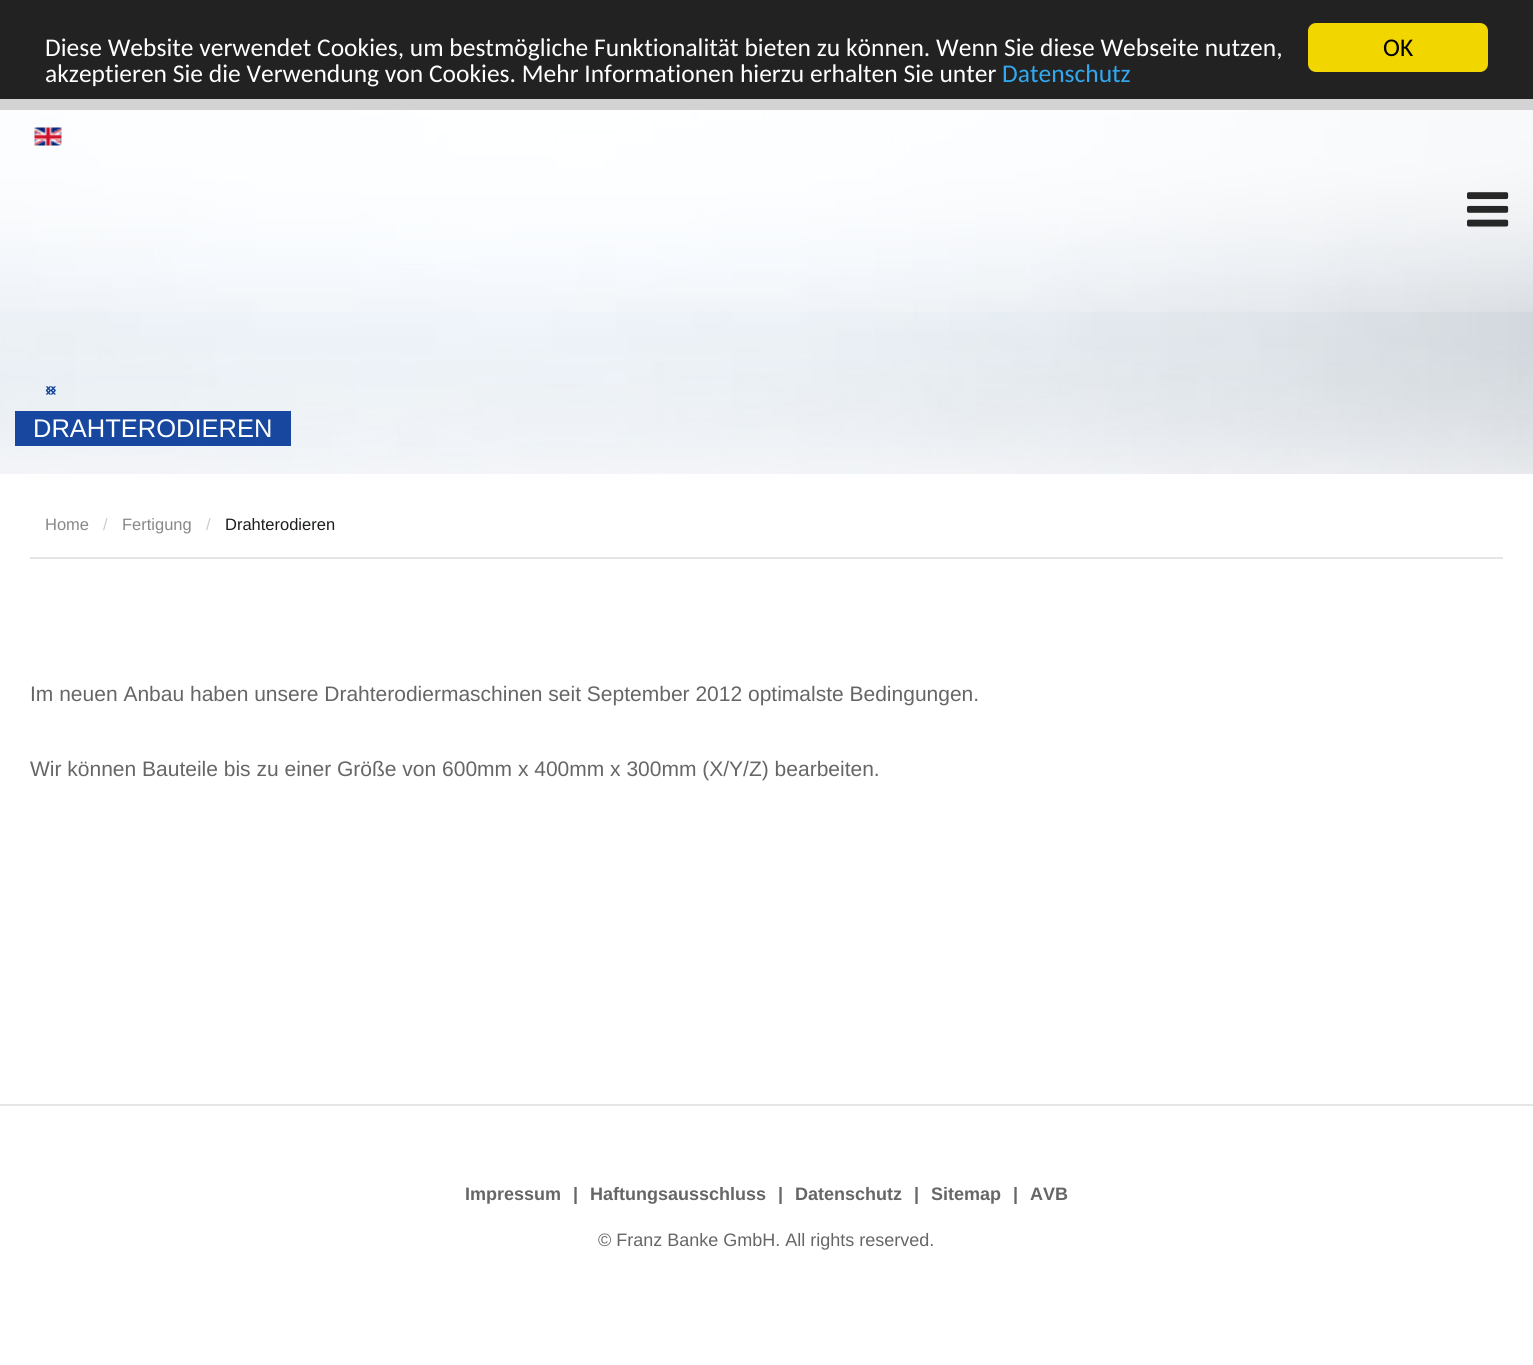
import math
import cairo

surface = cairo.ImageSurface(cairo.FORMAT_RGB24, 1533, 1365)
ctx = cairo.Context(surface)
options = cairo.FontOptions()
options.set_hint_metrics(cairo.HINT_METRICS_OFF)
options.set_hint_style(cairo.HINT_STYLE_NONE)
ctx.set_font_options(options)
ctx.set_miter_limit(4)


def round_rect(x, y, w, h, r):
    ctx.new_sub_path()
    for i, (u, v) in enumerate([(x + w - r, y + h - r), (x + r, y + h - r), (x + r, y + r), (x + w - r, y + r)]):
        ctx.arc(u, v, r, i * math.pi / 2, (i + 1) * math.pi / 2)
    ctx.close_path()


def picture(path, x, y, w, h):
    ctx.save()
    ctx.set_source_surface(cairo.ImageSurface.create_from_png(path), x, y)
    ctx.rectangle(x, y, w, h)
    ctx.fill()
    ctx.restore()


ctx.set_source_rgb(1, 1, 1)
ctx.paint()
picture("img1.png", 0, 110, 1533, 364)
ctx.set_source_rgb(0.133, 0.133, 0.133)
ctx.rectangle(0, 0, 1533, 110)
ctx.fill()
ctx.select_font_face("Carlito")
ctx.set_font_size(25.5)
ctx.set_source_rgb(1, 1, 1)
ctx.move_to(45, 56)
ctx.show_text("Diese Website verwendet Cookies, um bestmögliche Funktionalität bieten zu können. Wenn Sie diese Webseite nutzen,")
ctx.move_to(45, 82)
ctx.show_text("akzeptieren Sie die Verwendung von Cookies. Mehr Informationen hierzu erhalten Sie unter")
ctx.set_source_rgb(0.192, 0.659, 0.941)
ctx.move_to(1002, 82)
ctx.show_text("Datenschutz")
ctx.set_source_rgb(0.945, 0.839, 0)
round_rect(1308, 23, 180, 49, 8)
ctx.fill()
ctx.set_source_rgb(0, 0, 0)
ctx.move_to(1383, 56)
ctx.show_text("OK")
picture("img2.png", 0, 99, 1533, 213)
picture("img3.png", 34, 127, 28, 19)
picture("img4.png", 1467, 192, 42, 35)
ctx.select_font_face("Liberation Sans")
ctx.set_font_size(21)
ctx.set_source_rgb(0.09, 0.278, 0.62)
ctx.move_to(45, 396)
ctx.show_text("«")
ctx.move_to(45, 396)
ctx.show_text("»")
ctx.set_source_rgb(0.4, 0.4, 0.4)
ctx.move_to(30, 701)
ctx.show_text("Im neuen Anbau haben unsere Drahterodiermaschinen seit September 2012 optimalste Bedingungen.")
ctx.move_to(30, 776)
ctx.show_text("Wir können Bauteile bis zu einer Größe von 600mm x 400mm x 300mm (X/Y/Z) bearbeiten.")
ctx.set_source_rgb(0.898, 0.898, 0.898)
ctx.rectangle(30, 557, 1473, 2)
ctx.fill()
ctx.set_font_size(16.5)
ctx.set_source_rgb(0.533, 0.533, 0.533)
ctx.move_to(45, 530)
ctx.show_text("Home")
ctx.set_source_rgb(0.8, 0.8, 0.8)
ctx.move_to(103, 530)
ctx.show_text("/")
ctx.set_source_rgb(0.533, 0.533, 0.533)
ctx.move_to(122, 530)
ctx.show_text("Fertigung")
ctx.set_source_rgb(0.8, 0.8, 0.8)
ctx.move_to(206, 530)
ctx.show_text("/")
ctx.set_source_rgb(0.106, 0.114, 0.122)
ctx.move_to(225, 530)
ctx.show_text("Drahterodieren")
ctx.set_source_rgb(0.09, 0.278, 0.62)
ctx.rectangle(15, 411, 276, 35)
ctx.fill()
ctx.set_font_size(25.5)
ctx.set_source_rgb(1, 1, 1)
ctx.move_to(33, 437)
ctx.show_text("DRAHTERODIEREN")
ctx.set_source_rgb(0.898, 0.898, 0.898)
ctx.rectangle(0, 1104, 1533, 2)
ctx.fill()
ctx.select_font_face("Liberation Sans", cairo.FONT_SLANT_NORMAL, cairo.FONT_WEIGHT_BOLD)
ctx.set_font_size(18)
ctx.set_source_rgb(0.4, 0.4, 0.4)
ctx.move_to(465, 1200)
ctx.show_text("Impressum")
ctx.move_to(573, 1200)
ctx.show_text("|")
ctx.move_to(590, 1200)
ctx.show_text("Haftungsausschluss")
ctx.move_to(778, 1200)
ctx.show_text("|")
ctx.move_to(795, 1200)
ctx.show_text("Datenschutz")
ctx.move_to(914, 1200)
ctx.show_text("|")
ctx.move_to(931, 1200)
ctx.show_text("Sitemap")
ctx.move_to(1013, 1200)
ctx.show_text("|")
ctx.move_to(1030, 1200)
ctx.show_text("AVB")
ctx.select_font_face("Liberation Sans")
ctx.move_to(598, 1246)
ctx.show_text("© Franz Banke GmbH. All rights reserved.")
surface.write_to_png("page.png")
